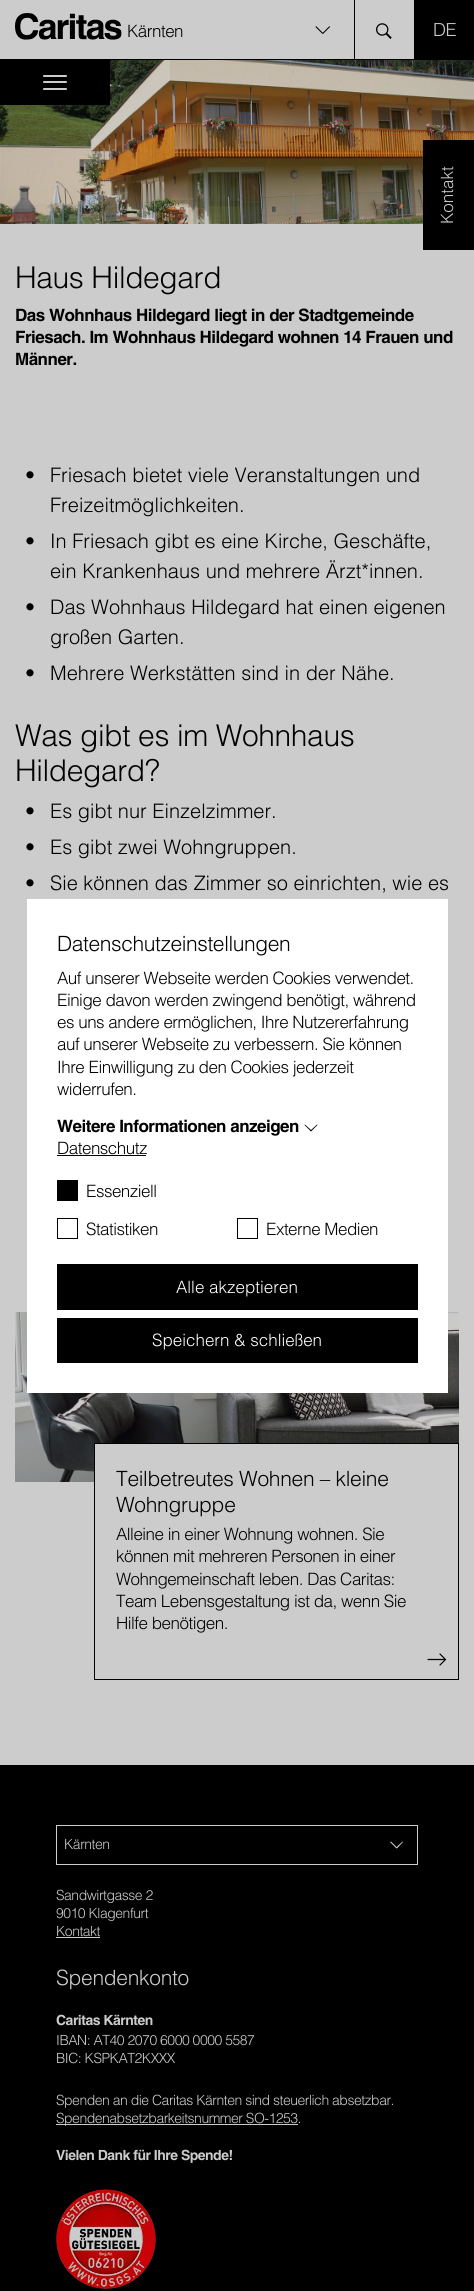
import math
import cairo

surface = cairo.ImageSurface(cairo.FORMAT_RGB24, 474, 2291)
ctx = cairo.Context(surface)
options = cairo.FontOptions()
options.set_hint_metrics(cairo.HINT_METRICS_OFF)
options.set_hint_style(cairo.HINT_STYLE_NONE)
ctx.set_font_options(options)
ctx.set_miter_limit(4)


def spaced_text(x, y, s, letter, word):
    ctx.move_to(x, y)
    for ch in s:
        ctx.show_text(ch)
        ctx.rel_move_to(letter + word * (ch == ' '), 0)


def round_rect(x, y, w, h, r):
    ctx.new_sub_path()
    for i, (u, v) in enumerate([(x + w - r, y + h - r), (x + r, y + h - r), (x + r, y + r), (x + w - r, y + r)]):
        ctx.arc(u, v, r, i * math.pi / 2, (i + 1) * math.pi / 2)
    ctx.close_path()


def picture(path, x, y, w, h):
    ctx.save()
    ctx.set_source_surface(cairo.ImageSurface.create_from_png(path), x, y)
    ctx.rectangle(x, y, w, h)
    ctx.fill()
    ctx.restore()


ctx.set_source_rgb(0.8, 0.8, 0.8)
ctx.paint()
ctx.set_source_rgb(0, 0, 0)
ctx.rectangle(0, 59, 474, 1)
ctx.fill()
picture("img1.png", 15, 13, 107, 27)
ctx.select_font_face("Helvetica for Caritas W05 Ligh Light")
ctx.set_font_size(17)
spaced_text(127, 37, "Kärnten", -0.5, 0)
ctx.new_path()
ctx.move_to(316, 26)
ctx.line_to(323, 33)
ctx.line_to(322.5, 34)
ctx.line_to(315.5, 27)
ctx.close_path()
ctx.fill()
ctx.new_path()
ctx.move_to(322.5, 33)
ctx.line_to(329.5, 26)
ctx.line_to(330, 27)
ctx.line_to(323, 34)
ctx.close_path()
ctx.fill()
ctx.rectangle(354, 0, 1, 59)
ctx.fill()
picture("img2.png", 376, 23, 16, 16)
ctx.rectangle(414, 0, 60, 59)
ctx.fill()
picture("img3.png", 434, 23, 22, 13)
picture("img4.png", 0, 60, 474, 164)
ctx.rectangle(0, 60, 110, 45)
ctx.fill()
ctx.set_source_rgb(0.8, 0.8, 0.8)
round_rect(43, 75, 24, 2, 1)
ctx.fill()
round_rect(43, 81, 24, 2, 1)
ctx.fill()
round_rect(43, 88, 24, 2, 1)
ctx.fill()
ctx.set_source_rgb(0, 0, 0)
ctx.rectangle(423, 140, 51, 110)
ctx.fill()
ctx.set_source_rgb(0.8, 0.8, 0.8)
ctx.save()
ctx.translate(453, 224)
ctx.rotate(-90 * math.pi / 180)
ctx.move_to(0, 0)
ctx.show_text("Kontakt")
ctx.restore()
ctx.set_font_size(30)
ctx.set_source_rgb(0, 0, 0)
spaced_text(15, 288, "Haus Hildegard", -0.4, 0)
ctx.select_font_face("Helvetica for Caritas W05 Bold", cairo.FONT_SLANT_NORMAL, cairo.FONT_WEIGHT_BOLD)
ctx.set_font_size(17)
spaced_text(15, 321, "Das Wohnhaus Hildegard liegt in der Stadtgemeinde", -0.5, 0)
spaced_text(15, 343, "Friesach. Im Wohnhaus Hildegard wohnen 14 Frauen und", -0.5, 0)
spaced_text(15, 365, "Männer.", -0.5, 0)
ctx.select_font_face("Helvetica for Caritas W05 Ligh Light")
ctx.set_font_size(20)
ctx.move_to(25, 482)
ctx.show_text("•")
ctx.move_to(50, 482)
ctx.show_text("Friesach bietet viele Veranstaltungen und")
ctx.move_to(50, 512)
ctx.show_text("Freizeitmöglichkeiten.")
ctx.move_to(25, 548)
ctx.show_text("•")
ctx.move_to(50, 548)
ctx.show_text("In Friesach gibt es eine Kirche, Geschäfte,")
ctx.move_to(50, 578)
ctx.show_text("ein Krankenhaus und mehrere Ärzt*innen.")
ctx.move_to(25, 614)
ctx.show_text("•")
ctx.move_to(50, 614)
ctx.show_text("Das Wohnhaus Hildegard hat einen eigenen")
ctx.move_to(50, 644)
ctx.show_text("großen Garten.")
ctx.move_to(25, 680)
ctx.show_text("•")
ctx.move_to(50, 680)
ctx.show_text("Mehrere Werkstätten sind in der Nähe.")
ctx.set_font_size(30)
spaced_text(15, 746, "Was gibt es im Wohnhaus", -0.4, 0)
spaced_text(15, 781, "Hildegard?", -0.4, 0)
ctx.set_font_size(20)
ctx.move_to(25, 818)
ctx.show_text("•")
ctx.move_to(50, 818)
ctx.show_text("Es gibt nur Einzelzimmer.")
ctx.move_to(25, 854)
ctx.show_text("•")
ctx.move_to(50, 854)
ctx.show_text("Es gibt zwei Wohngruppen.")
ctx.move_to(25, 890)
ctx.show_text("•")
ctx.move_to(50, 890)
ctx.show_text("Sie können das Zimmer so einrichten, wie es")
picture("img5.png", 15, 1312, 444, 170)
ctx.set_source_rgb(0.8, 0.8, 0.8)
ctx.rectangle(95, 1444, 363, 38)
ctx.fill()
ctx.rectangle(94.5, 1443.5, 364, 236)
ctx.set_source_rgb(0, 0, 0)
ctx.set_line_width(1)
ctx.stroke()
ctx.set_font_size(21)
spaced_text(116, 1486, "Teilbetreutes Wohnen – kleine", -0.3, 0)
spaced_text(116, 1512, "Wohngruppe", -0.3, 0)
ctx.set_font_size(17)
spaced_text(116, 1540, "Alleine in einer Wohnung wohnen. Sie", -0.5, 0)
spaced_text(116, 1562, "können mit mehreren Personen in einer", -0.5, 0)
spaced_text(116, 1585, "Wohngemeinschaft leben. Das Caritas:", -0.5, 0)
spaced_text(116, 1607, "Team Lebensgestaltung ist da, wenn Sie", -0.5, 0)
spaced_text(116, 1629, "Hilfe benötigen.", -0.5, 0)
ctx.new_path()
ctx.move_to(440, 1654)
ctx.line_to(445.5, 1659.5)
ctx.line_to(440, 1665)
ctx.move_to(428, 1659.5)
ctx.line_to(445, 1659.5)
ctx.set_line_width(1.2)
ctx.set_line_cap(cairo.LINE_CAP_ROUND)
ctx.set_line_join(cairo.LINE_JOIN_ROUND)
ctx.stroke()
ctx.set_source_rgb(1, 1, 1)
ctx.rectangle(27, 899, 421, 494)
ctx.fill()
ctx.set_font_size(21)
ctx.set_source_rgb(0, 0, 0)
spaced_text(57, 951, "Datenschutzeinstellungen", -0.4, 0)
ctx.set_font_size(17)
spaced_text(57, 984, "Auf unserer Webseite werden Cookies verwendet.", -0.5, 0)
spaced_text(57, 1006, "Einige davon werden zwingend benötigt, während", -0.5, 0)
spaced_text(57, 1028, "es uns andere ermöglichen, Ihre Nutzererfahrung", -0.5, 0)
spaced_text(57, 1050, "auf unserer Webseite zu verbessern. Sie können", -0.5, 0)
spaced_text(57, 1073, "Ihre Einwilligung zu den Cookies jederzeit", -0.5, 0)
spaced_text(57, 1095, "widerrufen.", -0.5, 0)
ctx.select_font_face("Helvetica for Caritas W05 Bold", cairo.FONT_SLANT_NORMAL, cairo.FONT_WEIGHT_BOLD)
spaced_text(57, 1132, "Weitere Informationen anzeigen", -0.5, 0)
ctx.new_path()
ctx.move_to(305, 1124.5)
ctx.line_to(311.5, 1130.5)
ctx.line_to(311, 1131.5)
ctx.line_to(304.5, 1125)
ctx.close_path()
ctx.fill()
ctx.new_path()
ctx.move_to(310.5, 1130.5)
ctx.line_to(317, 1124.5)
ctx.line_to(317.5, 1125)
ctx.line_to(311, 1131.5)
ctx.close_path()
ctx.fill()
ctx.select_font_face("Helvetica for Caritas W05 Ligh Light")
spaced_text(57, 1154, "Datenschutz", -0.5, 0)
ctx.rectangle(57, 1155, 89, 1)
ctx.fill()
ctx.rectangle(57, 1180, 21, 21)
ctx.fill()
spaced_text(86, 1197, "Essenziell", -0.5, 0)
ctx.rectangle(57.5, 1218.5, 20, 20)
ctx.set_line_width(1)
ctx.set_line_cap(cairo.LINE_CAP_BUTT)
ctx.set_line_join(cairo.LINE_JOIN_MITER)
ctx.stroke()
spaced_text(86, 1235, "Statistiken", -0.5, 0)
ctx.rectangle(237.5, 1218.5, 20, 20)
ctx.stroke()
spaced_text(266, 1235, "Externe Medien", -0.5, 0)
ctx.rectangle(57, 1264, 361, 46)
ctx.fill()
ctx.set_source_rgb(1, 1, 1)
ctx.move_to(176, 1293)
ctx.show_text("Alle akzeptieren")
ctx.set_source_rgb(0, 0, 0)
ctx.rectangle(57, 1318, 361, 45)
ctx.fill()
ctx.set_source_rgb(1, 1, 1)
ctx.move_to(152, 1346)
ctx.show_text("Speichern & schließen")
ctx.set_source_rgb(0, 0, 0)
ctx.rectangle(0, 1765, 474, 526)
ctx.fill()
ctx.rectangle(56.5, 1825.5, 361, 39)
ctx.set_source_rgb(0.8, 0.8, 0.8)
ctx.stroke()
ctx.set_font_size(14)
spaced_text(64, 1849, "Kärnten", -0.5, 0)
ctx.new_path()
ctx.move_to(391, 1841.5)
ctx.line_to(397, 1847.5)
ctx.line_to(396.5, 1848.5)
ctx.line_to(390, 1842)
ctx.close_path()
ctx.fill()
ctx.new_path()
ctx.move_to(396, 1847.5)
ctx.line_to(402.5, 1841.5)
ctx.line_to(403, 1842)
ctx.line_to(397, 1848.5)
ctx.close_path()
ctx.fill()
spaced_text(56, 1900, "Sandwirtgasse 2", -0.5, 0)
spaced_text(56, 1918, "9010 Klagenfurt", -0.5, 0)
spaced_text(56, 1936, "Kontakt", -0.5, 0)
ctx.rectangle(56, 1937, 44, 1)
ctx.fill()
ctx.set_font_size(21)
spaced_text(56, 1985, "Spendenkonto", -0.3, 0)
ctx.select_font_face("Helvetica for Caritas W05 Bold", cairo.FONT_SLANT_NORMAL, cairo.FONT_WEIGHT_BOLD)
ctx.set_font_size(14)
spaced_text(56, 2025, "Caritas Kärnten", -0.5, 0)
ctx.select_font_face("Helvetica for Caritas W05 Ligh Light")
spaced_text(56, 2045, "IBAN: AT40 2070 6000 0000 5587", -0.5, 0)
spaced_text(56, 2063, "BIC: KSPKAT2KXXX", -0.5, 0)
spaced_text(56, 2105, "Spenden an die Caritas Kärnten sind steuerlich absetzbar.", -0.5, 0)
ctx.rectangle(56, 2124, 242, 1)
ctx.fill()
spaced_text(56, 2123, "Spendenabsetzbarkeitsnummer SO-1253.", -0.5, 0)
ctx.select_font_face("Helvetica for Caritas W05 Bold", cairo.FONT_SLANT_NORMAL, cairo.FONT_WEIGHT_BOLD)
spaced_text(56, 2160, "Vielen Dank für Ihre Spende!", -0.5, 0)
picture("img6.png", 56, 2189, 100, 100)
surface.write_to_png("page.png")
